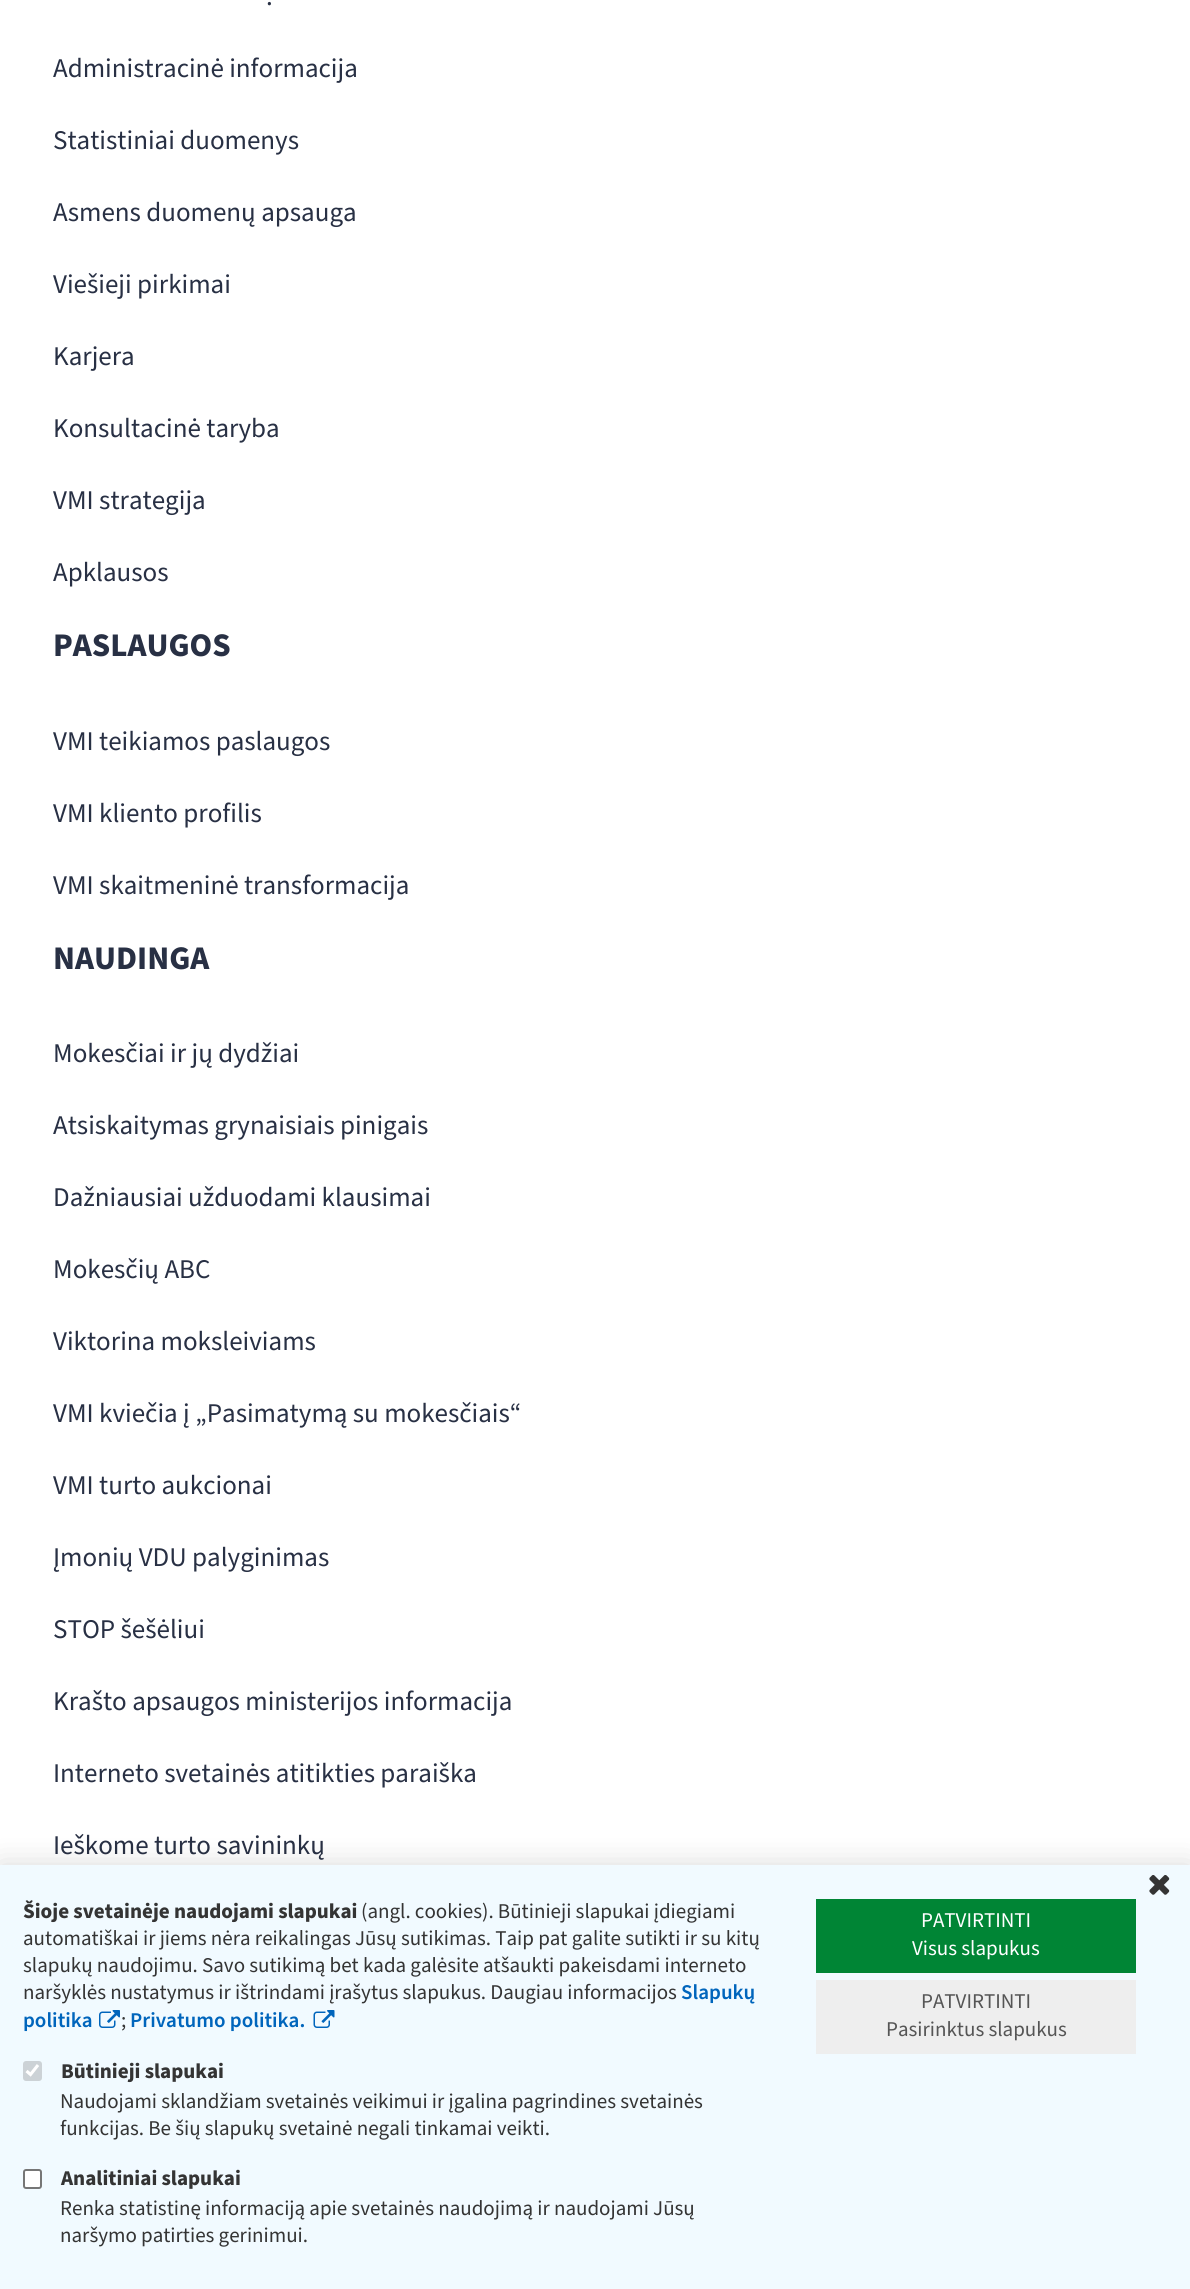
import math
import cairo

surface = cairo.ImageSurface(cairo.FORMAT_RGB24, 1190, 2289)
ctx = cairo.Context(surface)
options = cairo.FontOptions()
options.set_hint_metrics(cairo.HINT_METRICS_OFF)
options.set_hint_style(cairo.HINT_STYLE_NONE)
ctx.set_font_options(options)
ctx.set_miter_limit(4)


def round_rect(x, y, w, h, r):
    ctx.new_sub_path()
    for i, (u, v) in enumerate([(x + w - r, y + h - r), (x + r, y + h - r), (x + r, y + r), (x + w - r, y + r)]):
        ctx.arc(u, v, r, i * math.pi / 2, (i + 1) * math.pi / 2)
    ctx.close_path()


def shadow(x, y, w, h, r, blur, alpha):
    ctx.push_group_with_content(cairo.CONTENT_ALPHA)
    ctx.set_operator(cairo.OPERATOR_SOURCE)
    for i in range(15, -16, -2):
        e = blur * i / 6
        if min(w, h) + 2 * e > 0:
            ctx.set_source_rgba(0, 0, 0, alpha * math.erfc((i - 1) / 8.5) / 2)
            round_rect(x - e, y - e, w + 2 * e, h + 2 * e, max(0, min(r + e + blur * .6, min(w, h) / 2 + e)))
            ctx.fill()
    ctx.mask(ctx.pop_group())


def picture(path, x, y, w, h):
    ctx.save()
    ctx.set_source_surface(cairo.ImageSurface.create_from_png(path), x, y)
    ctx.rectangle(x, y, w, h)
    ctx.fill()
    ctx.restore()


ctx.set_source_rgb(1, 1, 1)
ctx.paint()
ctx.select_font_face("Source Sans Pro")
ctx.set_font_size(27)
ctx.set_source_rgb(0.157, 0.188, 0.267)
ctx.move_to(266, 5)
ctx.show_text(".")
ctx.move_to(53, 77)
ctx.show_text("Administracinė informacija")
ctx.move_to(53, 149)
ctx.show_text("Statistiniai duomenys")
ctx.move_to(53, 221)
ctx.show_text("Asmens duomenų apsauga")
ctx.move_to(53, 293)
ctx.show_text("Viešieji pirkimai")
ctx.move_to(53, 365)
ctx.show_text("Karjera")
ctx.move_to(53, 437)
ctx.show_text("Konsultacinė taryba")
ctx.move_to(53, 509)
ctx.show_text("VMI strategija")
ctx.move_to(53, 581)
ctx.show_text("Apklausos")
ctx.select_font_face("Source Sans Pro", cairo.FONT_SLANT_NORMAL, cairo.FONT_WEIGHT_BOLD)
ctx.set_font_size(33)
ctx.move_to(53, 656)
ctx.show_text("PASLAUGOS")
ctx.select_font_face("Source Sans Pro")
ctx.set_font_size(27)
ctx.move_to(53, 750)
ctx.show_text("VMI teikiamos paslaugos")
ctx.move_to(53, 822)
ctx.show_text("VMI kliento profilis")
ctx.move_to(53, 894)
ctx.show_text("VMI skaitmeninė transformacija")
ctx.select_font_face("Source Sans Pro", cairo.FONT_SLANT_NORMAL, cairo.FONT_WEIGHT_BOLD)
ctx.set_font_size(33)
ctx.move_to(53, 969)
ctx.show_text("NAUDINGA")
ctx.select_font_face("Source Sans Pro")
ctx.set_font_size(27)
ctx.move_to(53, 1062)
ctx.show_text("Mokesčiai ir jų dydžiai")
ctx.move_to(53, 1134)
ctx.show_text("Atsiskaitymas grynaisiais pinigais")
ctx.move_to(53, 1206)
ctx.show_text("Dažniausiai užduodami klausimai")
ctx.move_to(53, 1278)
ctx.show_text("Mokesčių ABC")
ctx.move_to(53, 1350)
ctx.show_text("Viktorina moksleiviams")
ctx.move_to(53, 1422)
ctx.show_text("VMI kviečia į „Pasimatymą su mokesčiais“")
ctx.move_to(53, 1494)
ctx.show_text("VMI turto aukcionai")
ctx.move_to(53, 1566)
ctx.show_text("Įmonių VDU palyginimas")
ctx.move_to(53, 1638)
ctx.show_text("STOP šešėliui")
ctx.move_to(53, 1710)
ctx.show_text("Krašto apsaugos ministerijos informacija")
ctx.move_to(53, 1782)
ctx.show_text("Interneto svetainės atitikties paraiška")
ctx.move_to(53, 1854)
ctx.show_text("Ieškome turto savininkų")
ctx.set_source_rgb(0, 0, 0)
shadow(0, 1865, 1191, 424, 0, 15, 0.15)
ctx.set_source_rgb(0.945, 0.98, 1)
ctx.rectangle(0, 1865, 1190, 424)
ctx.fill()
picture("img1.png", 1149, 1875, 21, 20)
ctx.select_font_face("Source Sans Pro", cairo.FONT_SLANT_NORMAL, cairo.FONT_WEIGHT_BOLD)
ctx.set_font_size(21)
ctx.set_source_rgb(0.204, 0.204, 0.204)
ctx.move_to(23, 1918)
ctx.show_text("Šioje svetainėje naudojami slapukai")
ctx.select_font_face("Source Sans Pro")
ctx.move_to(361, 1918)
ctx.show_text("(angl. cookies). Būtinieji slapukai įdiegiami")
ctx.move_to(23, 1945)
ctx.show_text("automatiškai ir jiems nėra reikalingas Jūsų sutikimas. Taip pat galite sutikti ir su kitų")
ctx.move_to(23, 1972)
ctx.show_text("slapukų naudojimu. Savo sutikimą bet kada galėsite atšaukti pakeisdami interneto")
ctx.move_to(23, 1999)
ctx.show_text("naršyklės nustatymus ir ištrindami įrašytus slapukus. Daugiau informacijos")
ctx.select_font_face("Source Sans Pro SemiBold")
ctx.set_source_rgb(0, 0.396, 0.737)
ctx.move_to(681, 1999)
ctx.show_text("Slapukų")
ctx.move_to(23, 2027)
ctx.show_text("politika")
picture("img2.png", 99, 2010, 21, 18)
ctx.select_font_face("Source Sans Pro")
ctx.set_source_rgb(0.204, 0.204, 0.204)
ctx.move_to(121, 2027)
ctx.show_text(";")
ctx.select_font_face("Source Sans Pro SemiBold")
ctx.set_source_rgb(0, 0.396, 0.737)
ctx.move_to(130, 2027)
ctx.show_text("Privatumo politika.")
picture("img3.png", 313, 2010, 22, 18)
ctx.set_source_rgb(0.8, 0.824, 0.839)
round_rect(23, 2061, 19, 20, 3)
ctx.fill()
ctx.new_path()
ctx.move_to(26.5, 2071)
ctx.line_to(30.5, 2074.5)
ctx.line_to(38, 2065)
ctx.set_source_rgb(1, 1, 1)
ctx.set_line_width(3.1)
ctx.stroke()
ctx.select_font_face("Source Sans Pro", cairo.FONT_SLANT_NORMAL, cairo.FONT_WEIGHT_BOLD)
ctx.set_source_rgb(0.204, 0.204, 0.204)
ctx.move_to(61, 2078)
ctx.show_text("Būtinieji slapukai")
ctx.select_font_face("Source Sans Pro")
ctx.move_to(60, 2108)
ctx.show_text("Naudojami sklandžiam svetainės veikimui ir įgalina pagrindines svetainės")
ctx.move_to(60, 2135)
ctx.show_text("funkcijas. Be šių slapukų svetainė negali tinkamai veikti.")
ctx.set_source_rgb(1, 1, 1)
round_rect(24, 2170, 17, 18, 2)
ctx.fill_preserve()
ctx.set_source_rgb(0.463, 0.463, 0.463)
ctx.set_line_width(2)
ctx.stroke()
ctx.select_font_face("Source Sans Pro", cairo.FONT_SLANT_NORMAL, cairo.FONT_WEIGHT_BOLD)
ctx.set_source_rgb(0.204, 0.204, 0.204)
ctx.move_to(61, 2185)
ctx.show_text("Analitiniai slapukai")
ctx.select_font_face("Source Sans Pro")
ctx.move_to(60, 2215)
ctx.show_text("Renka statistinę informaciją apie svetainės naudojimą ir naudojami Jūsų")
ctx.move_to(60, 2242)
ctx.show_text("naršymo patirties gerinimui.")
ctx.set_source_rgb(0, 0.522, 0.208)
ctx.rectangle(816, 1899, 320, 74)
ctx.fill()
ctx.set_source_rgb(1, 1, 1)
ctx.move_to(921, 1927)
ctx.show_text("PATVIRTINTI")
ctx.move_to(912, 1955)
ctx.show_text("Visus slapukus")
ctx.set_source_rgb(0.933, 0.933, 0.933)
ctx.rectangle(816, 1980, 320, 74)
ctx.fill()
ctx.set_source_rgb(0.333, 0.333, 0.333)
ctx.move_to(921, 2008)
ctx.show_text("PATVIRTINTI")
ctx.move_to(886, 2036)
ctx.show_text("Pasirinktus slapukus")
surface.write_to_png("page.png")
